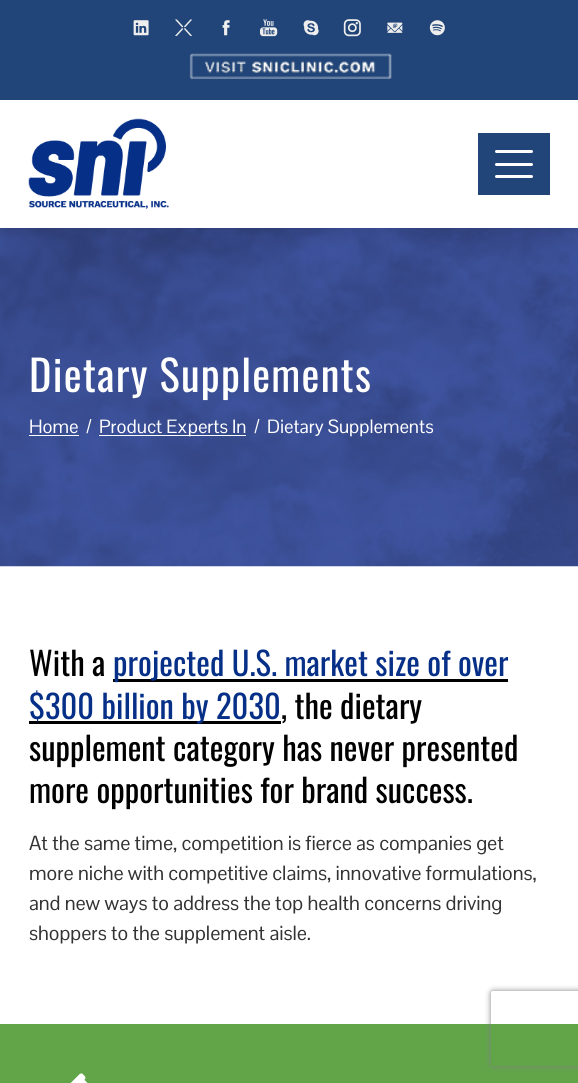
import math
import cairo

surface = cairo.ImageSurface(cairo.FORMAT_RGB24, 578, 1083)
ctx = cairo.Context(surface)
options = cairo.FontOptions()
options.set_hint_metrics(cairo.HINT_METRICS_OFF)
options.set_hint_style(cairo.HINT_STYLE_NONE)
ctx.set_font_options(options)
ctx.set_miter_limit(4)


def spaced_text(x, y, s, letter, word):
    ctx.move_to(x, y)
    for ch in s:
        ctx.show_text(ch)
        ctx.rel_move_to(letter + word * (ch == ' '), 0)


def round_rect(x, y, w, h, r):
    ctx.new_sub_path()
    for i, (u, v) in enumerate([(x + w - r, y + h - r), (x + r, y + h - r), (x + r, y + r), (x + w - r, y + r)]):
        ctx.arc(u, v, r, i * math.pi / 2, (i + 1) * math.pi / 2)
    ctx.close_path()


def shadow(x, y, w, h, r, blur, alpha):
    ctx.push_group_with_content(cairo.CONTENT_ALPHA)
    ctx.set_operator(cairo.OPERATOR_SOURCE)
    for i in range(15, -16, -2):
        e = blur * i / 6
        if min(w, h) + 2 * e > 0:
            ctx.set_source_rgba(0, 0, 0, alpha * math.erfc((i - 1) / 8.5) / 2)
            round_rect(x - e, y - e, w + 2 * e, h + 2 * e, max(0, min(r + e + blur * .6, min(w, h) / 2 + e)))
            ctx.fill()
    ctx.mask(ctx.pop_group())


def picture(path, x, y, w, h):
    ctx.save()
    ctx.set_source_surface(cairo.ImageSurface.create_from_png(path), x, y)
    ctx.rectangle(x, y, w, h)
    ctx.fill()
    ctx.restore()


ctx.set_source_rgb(1, 1, 1)
ctx.paint()
picture("img11.png", 0, 228, 578, 339)
ctx.set_source_rgb(0, 0, 0)
shadow(0, 104, 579, 127, 0, 6, 0.1)
ctx.set_source_rgb(0.129, 0.271, 0.471)
ctx.rectangle(0, 0, 578, 100)
ctx.fill()
picture("img1.png", 133, 20, 16, 16)
picture("img2.png", 175, 19, 18, 17)
picture("img3.png", 222, 20, 8, 16)
picture("img4.png", 260, 19, 18, 18)
picture("img5.png", 303, 20, 16, 16)
picture("img6.png", 343, 19, 18, 18)
picture("img7.png", 387, 22, 16, 11)
picture("img8.png", 429, 20, 16, 16)
picture("img9.png", 189, 53, 203, 26)
ctx.set_source_rgb(1, 1, 1)
ctx.rectangle(0, 100, 578, 128)
ctx.fill()
picture("img10.png", 28, 118, 141, 91)
ctx.set_source_rgb(0.129, 0.271, 0.471)
ctx.rectangle(478, 133, 72, 62)
ctx.fill()
ctx.set_source_rgb(1, 1, 1)
round_rect(495, 150, 38, 3, 1.5)
ctx.fill()
round_rect(495, 163, 38, 3, 1.5)
ctx.fill()
round_rect(495, 175, 38, 3, 1.5)
ctx.fill()
ctx.select_font_face("Oswald")
ctx.set_font_size(42.5)
spaced_text(29, 392, "Dietary Supplements", 1.25, 0)
ctx.select_font_face("Pontano Sans")
ctx.set_font_size(18.75)
ctx.move_to(29, 433)
ctx.show_text("Home")
ctx.rectangle(29, 435, 50, 1)
ctx.fill()
ctx.move_to(86, 433)
ctx.show_text("/")
ctx.rectangle(99, 435, 147, 1)
ctx.fill()
ctx.move_to(99, 433)
ctx.show_text("Product Experts In")
ctx.move_to(254, 433)
ctx.show_text("/")
ctx.move_to(267, 433)
ctx.show_text("Dietary Supplements")
ctx.select_font_face("Oswald")
ctx.set_font_size(32.5)
ctx.set_source_rgb(0, 0, 0)
ctx.move_to(29, 676)
ctx.show_text("With a")
ctx.rectangle(113, 679, 395, 3)
ctx.fill()
ctx.set_source_rgb(0.024, 0.184, 0.529)
ctx.move_to(113, 676)
ctx.show_text("projected U.S. market size of over")
ctx.set_source_rgb(0, 0, 0)
ctx.rectangle(29, 721, 252, 3)
ctx.fill()
ctx.set_source_rgb(0.024, 0.184, 0.529)
ctx.move_to(29, 719)
ctx.show_text("$300 billion by 2030")
ctx.set_source_rgb(0, 0, 0)
ctx.move_to(281, 719)
ctx.show_text(", the dietary")
ctx.move_to(29, 761)
ctx.show_text("supplement category has never presented")
ctx.move_to(29, 803)
ctx.show_text("more opportunities for brand success.")
ctx.select_font_face("Pontano Sans")
ctx.set_font_size(20)
ctx.set_source_rgb(0.2, 0.2, 0.2)
ctx.move_to(29, 850)
ctx.show_text("At the same time, competition is fierce as companies get")
ctx.move_to(29, 880)
ctx.show_text("more niche with competitive claims, innovative formulations,")
ctx.move_to(29, 910)
ctx.show_text("and new ways to address the top health concerns driving")
ctx.move_to(29, 940)
ctx.show_text("shoppers to the supplement aisle.")
ctx.set_source_rgb(0.38, 0.647, 0.282)
ctx.rectangle(0, 1024, 578, 59)
ctx.fill()
picture("img12.png", 70, 1073, 18, 10)
ctx.save()
ctx.set_fill_rule(cairo.FILL_RULE_EVEN_ODD)
ctx.new_path()
ctx.move_to(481, 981)
ctx.line_to(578, 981)
ctx.line_to(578, 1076)
ctx.line_to(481, 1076)
ctx.close_path()
ctx.move_to(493.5, 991)
ctx.line_to(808.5, 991)
ctx.curve_to(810, 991, 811, 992, 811, 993.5)
ctx.line_to(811, 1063.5)
ctx.curve_to(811, 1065, 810, 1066, 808.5, 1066)
ctx.line_to(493.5, 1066)
ctx.curve_to(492, 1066, 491, 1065, 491, 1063.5)
ctx.line_to(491, 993.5)
ctx.curve_to(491, 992, 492, 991, 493.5, 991)
ctx.close_path()
ctx.clip()
ctx.set_source_rgb(0.502, 0.502, 0.502)
shadow(491, 991, 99, 75, 2.5, 3, 1)
ctx.restore()
surface.write_to_png("page.png")
